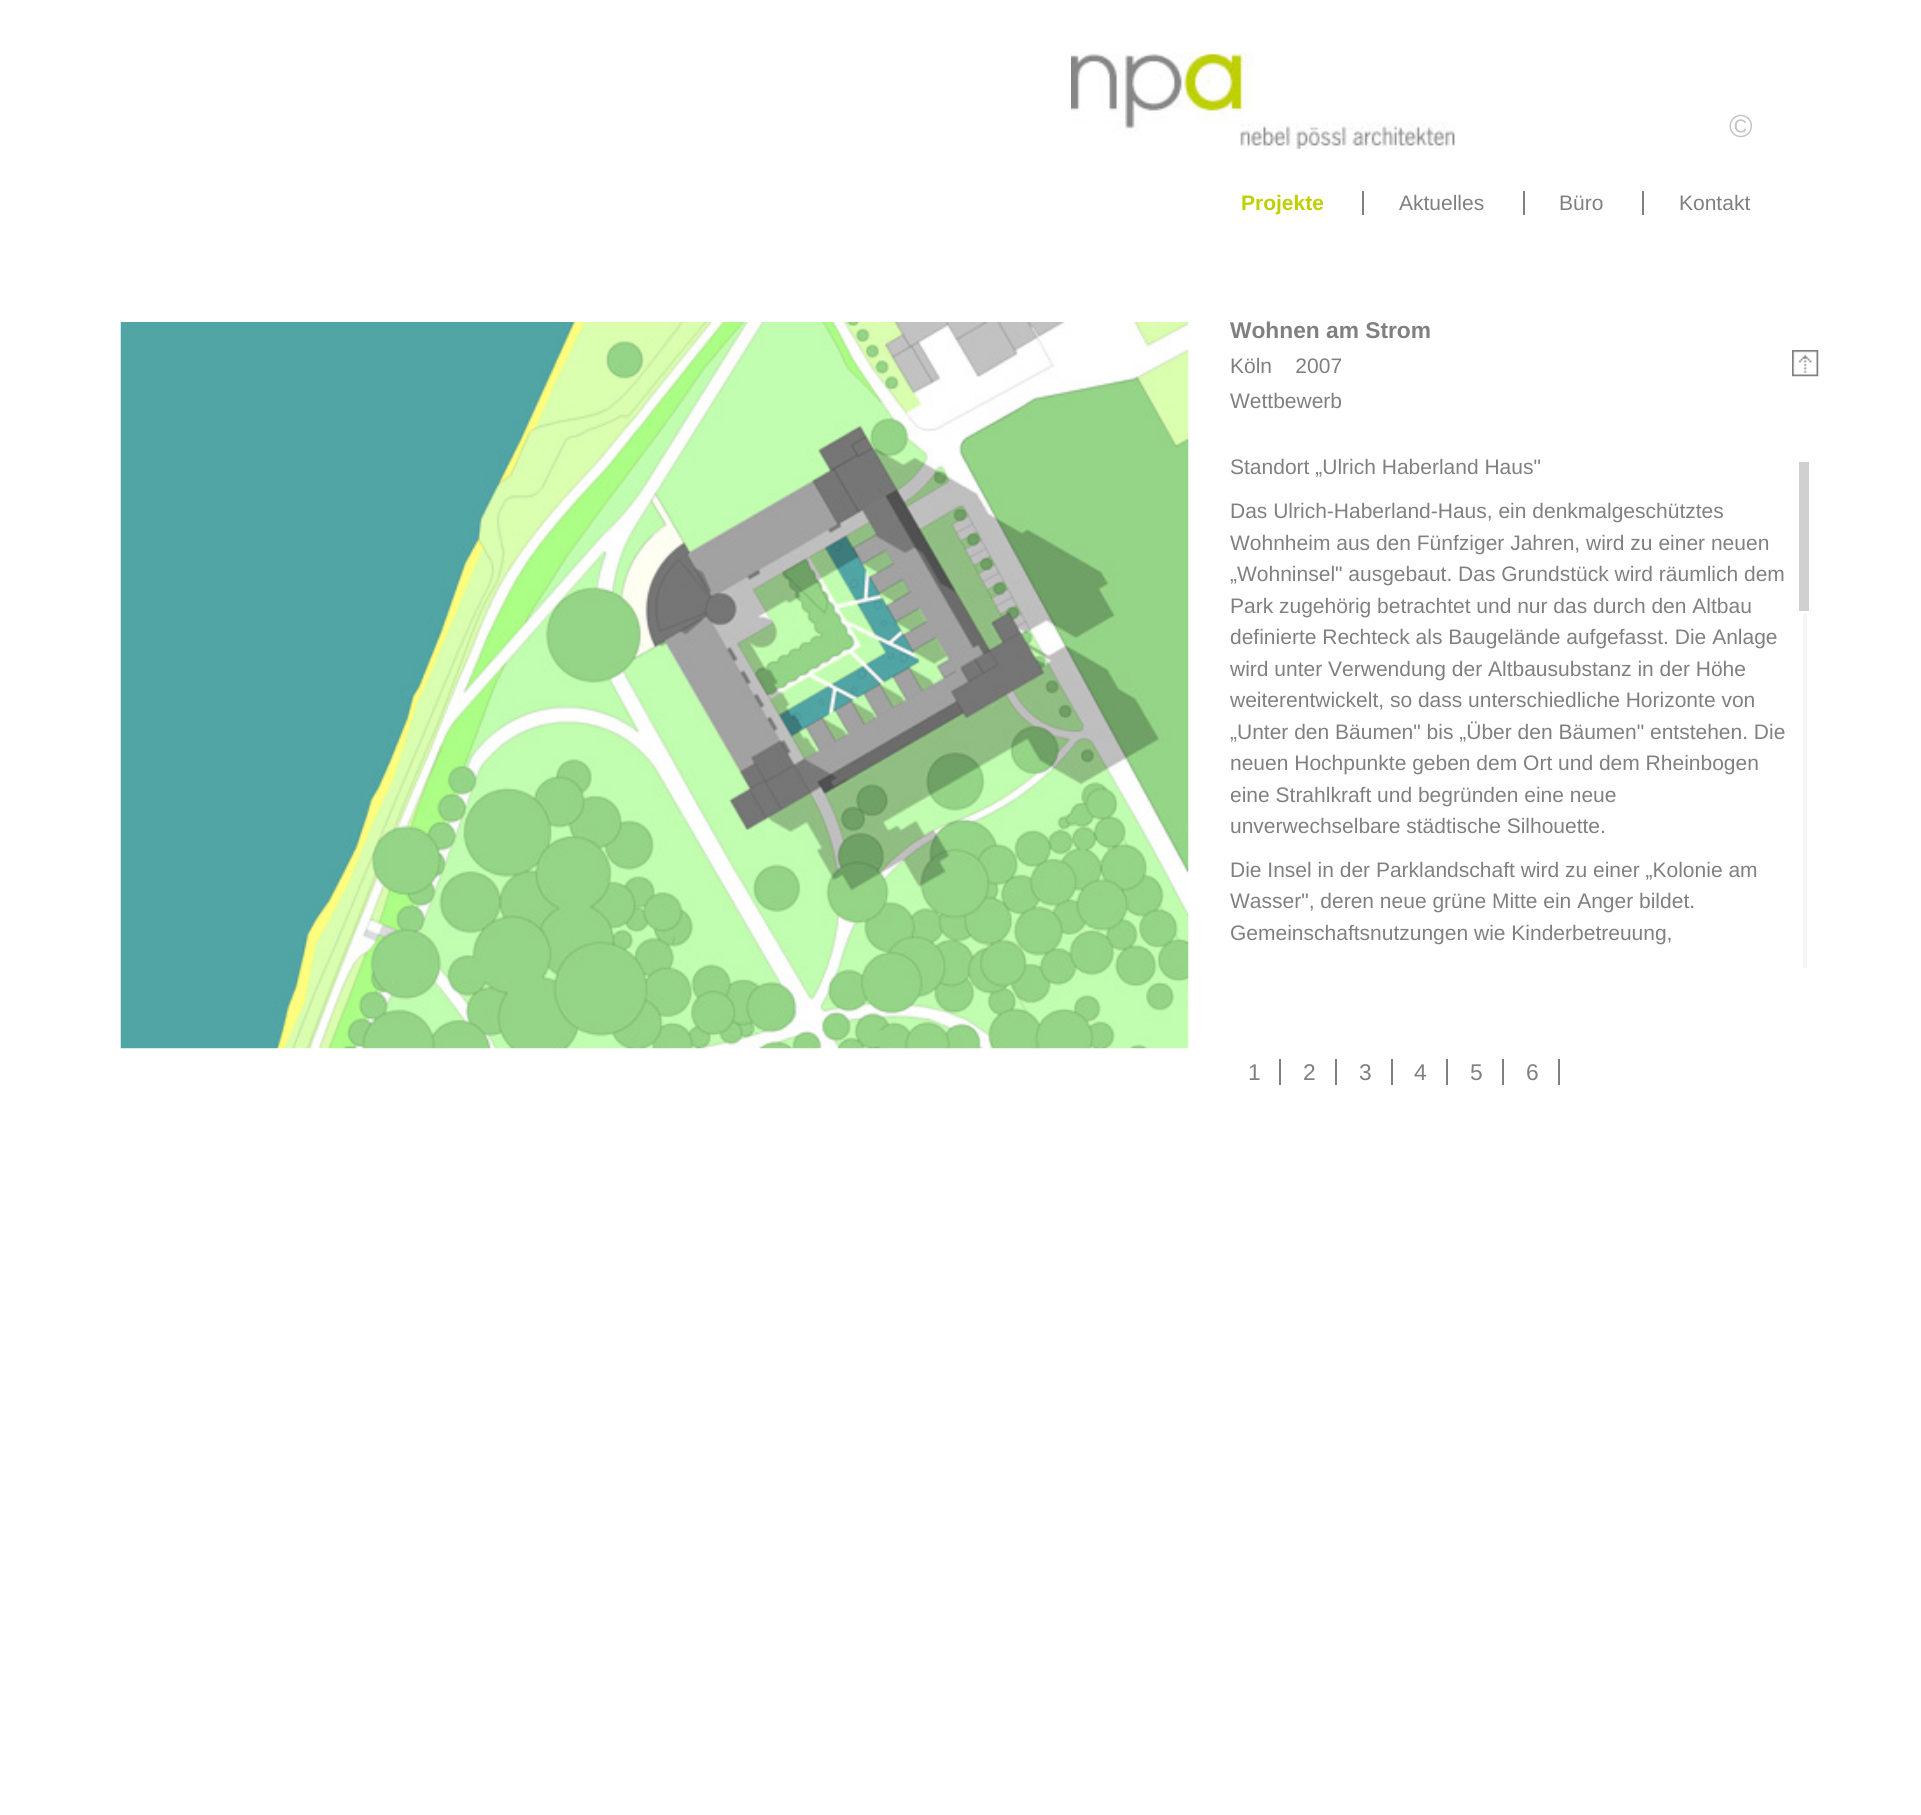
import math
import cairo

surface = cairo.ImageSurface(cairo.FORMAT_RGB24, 1921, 1815)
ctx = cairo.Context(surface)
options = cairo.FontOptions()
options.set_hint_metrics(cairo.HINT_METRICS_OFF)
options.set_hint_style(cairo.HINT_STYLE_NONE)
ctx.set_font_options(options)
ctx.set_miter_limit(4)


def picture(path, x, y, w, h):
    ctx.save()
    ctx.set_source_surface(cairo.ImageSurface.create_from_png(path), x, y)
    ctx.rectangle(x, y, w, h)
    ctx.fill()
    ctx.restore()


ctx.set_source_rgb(1, 1, 1)
ctx.paint()
picture("img1.png", 1071, 52, 384, 97)
ctx.select_font_face("Liberation Sans")
ctx.set_font_size(32)
ctx.set_source_rgb(0.773, 0.773, 0.773)
ctx.move_to(1729, 137)
ctx.show_text("©")
ctx.set_source_rgb(0.502, 0.502, 0.502)
ctx.rectangle(1362, 191, 2, 24)
ctx.fill()
ctx.select_font_face("Liberation Sans", cairo.FONT_SLANT_NORMAL, cairo.FONT_WEIGHT_BOLD)
ctx.set_font_size(21)
ctx.set_source_rgb(0.745, 0.816, 0)
ctx.move_to(1241, 210)
ctx.show_text("Projekte")
ctx.set_source_rgb(0.502, 0.502, 0.502)
ctx.rectangle(1523, 191, 2, 24)
ctx.fill()
ctx.select_font_face("Liberation Sans")
ctx.move_to(1399, 210)
ctx.show_text("Aktuelles")
ctx.rectangle(1642, 191, 2, 24)
ctx.fill()
ctx.move_to(1559, 210)
ctx.show_text("Büro")
ctx.move_to(1679, 210)
ctx.show_text("Kontakt")
picture("img2.png", 120, 322, 1069, 727)
ctx.select_font_face("Liberation Sans", cairo.FONT_SLANT_NORMAL, cairo.FONT_WEIGHT_BOLD)
ctx.set_font_size(22.75)
ctx.move_to(1230, 338)
ctx.show_text("Wohnen am Strom")
ctx.select_font_face("Liberation Sans")
ctx.set_font_size(21)
ctx.move_to(1230, 373)
ctx.show_text("Köln    2007")
picture("img3.png", 1792, 350, 27, 27)
ctx.move_to(1230, 408)
ctx.show_text("Wettbewerb")
ctx.move_to(1230, 474)
ctx.show_text("Standort „Ulrich Haberland Haus\"")
ctx.move_to(1230, 518)
ctx.show_text("Das Ulrich-Haberland-Haus, ein denkmalgeschütztes")
ctx.move_to(1230, 550)
ctx.show_text("Wohnheim aus den Fünfziger Jahren, wird zu einer neuen")
ctx.move_to(1230, 581)
ctx.show_text("„Wohninsel\" ausgebaut. Das Grundstück wird räumlich dem")
ctx.move_to(1230, 613)
ctx.show_text("Park zugehörig betrachtet und nur das durch den Altbau")
ctx.move_to(1230, 644)
ctx.show_text("definierte Rechteck als Baugelände aufgefasst. Die Anlage")
ctx.move_to(1230, 676)
ctx.show_text("wird unter Verwendung der Altbausubstanz in der Höhe")
ctx.move_to(1230, 707)
ctx.show_text("weiterentwickelt, so dass unterschiedliche Horizonte von")
ctx.move_to(1230, 739)
ctx.show_text("„Unter den Bäumen\" bis „Über den Bäumen\" entstehen. Die")
ctx.move_to(1230, 770)
ctx.show_text("neuen Hochpunkte geben dem Ort und dem Rheinbogen")
ctx.move_to(1230, 802)
ctx.show_text("eine Strahlkraft und begründen eine neue")
ctx.move_to(1230, 833)
ctx.show_text("unverwechselbare städtische Silhouette.")
ctx.move_to(1230, 877)
ctx.show_text("Die Insel in der Parklandschaft wird zu einer „Kolonie am")
ctx.move_to(1230, 908)
ctx.show_text("Wasser\", deren neue grüne Mitte ein Anger bildet.")
ctx.move_to(1230, 940)
ctx.show_text("Gemeinschaftsnutzungen wie Kinderbetreuung,")
ctx.set_source_rgb(0.961, 0.961, 0.961)
ctx.rectangle(1803, 613, 4, 355)
ctx.fill()
ctx.set_source_rgb(0.816, 0.816, 0.816)
ctx.rectangle(1799, 462, 10, 149)
ctx.fill()
ctx.set_font_size(22.75)
ctx.set_source_rgb(0.502, 0.502, 0.502)
ctx.move_to(1248, 1080)
ctx.show_text("1")
ctx.rectangle(1279, 1059, 2, 26)
ctx.fill()
ctx.move_to(1303, 1080)
ctx.show_text("2")
ctx.rectangle(1335, 1059, 2, 26)
ctx.fill()
ctx.move_to(1359, 1080)
ctx.show_text("3")
ctx.rectangle(1391, 1059, 2, 26)
ctx.fill()
ctx.move_to(1414, 1080)
ctx.show_text("4")
ctx.rectangle(1446, 1059, 2, 26)
ctx.fill()
ctx.move_to(1470, 1080)
ctx.show_text("5")
ctx.rectangle(1502, 1059, 2, 26)
ctx.fill()
ctx.move_to(1526, 1080)
ctx.show_text("6")
ctx.rectangle(1558, 1059, 2, 26)
ctx.fill()
surface.write_to_png("page.png")
